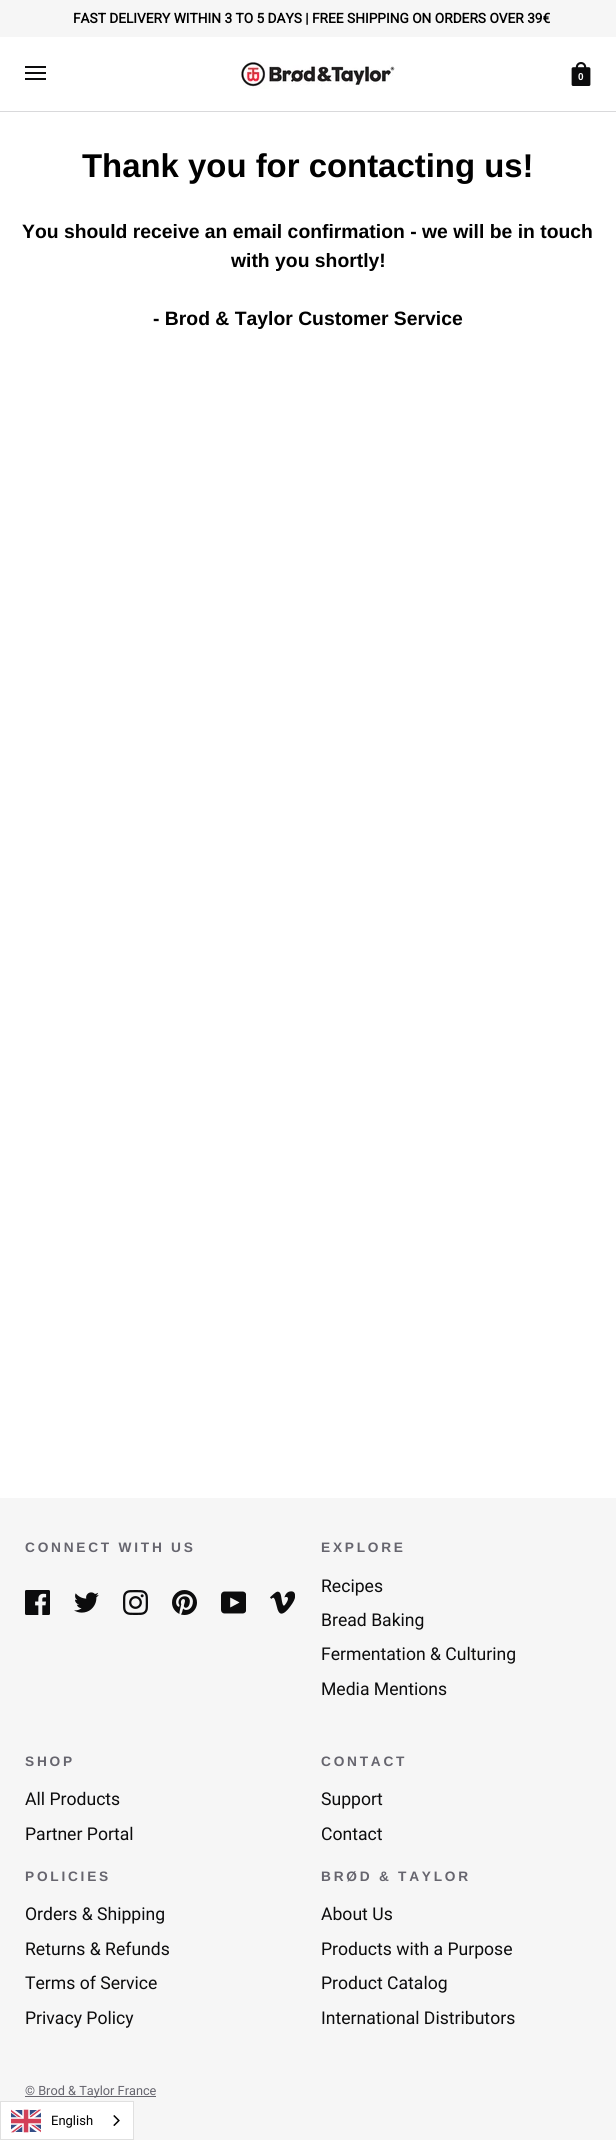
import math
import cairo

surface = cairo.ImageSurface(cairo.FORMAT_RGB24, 616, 2140)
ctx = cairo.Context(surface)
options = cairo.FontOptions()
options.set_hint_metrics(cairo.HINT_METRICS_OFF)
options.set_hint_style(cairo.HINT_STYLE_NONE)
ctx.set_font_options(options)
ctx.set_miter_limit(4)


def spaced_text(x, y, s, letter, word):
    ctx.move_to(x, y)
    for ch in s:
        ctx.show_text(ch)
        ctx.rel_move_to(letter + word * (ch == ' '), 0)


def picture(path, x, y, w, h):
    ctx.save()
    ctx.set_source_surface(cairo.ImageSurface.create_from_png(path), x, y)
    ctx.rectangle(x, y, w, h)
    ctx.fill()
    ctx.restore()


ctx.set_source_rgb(1, 1, 1)
ctx.paint()
ctx.set_source_rgb(0.961, 0.961, 0.961)
ctx.rectangle(0, 0, 616, 37)
ctx.fill()
ctx.select_font_face("Roboto", cairo.FONT_SLANT_NORMAL, cairo.FONT_WEIGHT_BOLD)
ctx.set_font_size(13.7)
ctx.set_source_rgb(0, 0, 0)
ctx.move_to(73, 23)
ctx.show_text("FAST DELIVERY WITHIN 3 TO 5 DAYS | FREE SHIPPING ON ORDERS OVER 39€")
ctx.set_source_rgb(0.851, 0.851, 0.859)
ctx.rectangle(0, 111, 616, 1)
ctx.fill()
ctx.set_source_rgb(0.047, 0.047, 0.051)
ctx.rectangle(25, 66, 21, 2)
ctx.fill()
ctx.rectangle(25, 72, 21, 2)
ctx.fill()
ctx.rectangle(25, 78, 21, 2)
ctx.fill()
picture("img1.png", 241, 61, 154, 28)
picture("img2.png", 571, 62, 20, 24)
ctx.select_font_face("Liberation Sans", cairo.FONT_SLANT_NORMAL, cairo.FONT_WEIGHT_BOLD)
ctx.set_font_size(10)
ctx.set_source_rgb(1, 1, 1)
ctx.move_to(578, 80)
ctx.show_text("0")
ctx.set_font_size(32.9)
ctx.set_source_rgb(0, 0, 0)
ctx.move_to(82, 177)
ctx.show_text("Thank you for contacting us!")
ctx.set_font_size(19.35)
ctx.move_to(22, 238)
ctx.show_text("You should receive an email confirmation - we will be in touch")
ctx.move_to(231, 267)
ctx.show_text("with you shortly!")
ctx.move_to(153, 325)
ctx.show_text("- Brod & Taylor Customer Service")
ctx.set_source_rgb(0.961, 0.961, 0.961)
ctx.rectangle(0, 1498, 616, 642)
ctx.fill()
ctx.set_font_size(13.7)
ctx.set_source_rgb(0.4, 0.396, 0.431)
spaced_text(25, 1552, "CONNECT WITH US", 2.75, 0)
picture("img3.png", 25, 1590, 25, 25)
picture("img4.png", 74, 1592, 25, 21)
picture("img5.png", 123, 1590, 25, 25)
picture("img6.png", 172, 1590, 25, 25)
picture("img7.png", 221, 1591, 25, 23)
picture("img8.png", 270, 1591, 25, 23)
spaced_text(321, 1552, "EXPLORE", 2.75, 0)
ctx.select_font_face("Roboto")
ctx.set_font_size(17.6)
ctx.set_source_rgb(0.047, 0.047, 0.051)
ctx.move_to(321, 1592)
ctx.show_text("Recipes")
ctx.move_to(321, 1626)
ctx.show_text("Bread Baking")
ctx.move_to(321, 1660)
ctx.show_text("Fermentation & Culturing")
ctx.move_to(321, 1695)
ctx.show_text("Media Mentions")
ctx.select_font_face("Liberation Sans", cairo.FONT_SLANT_NORMAL, cairo.FONT_WEIGHT_BOLD)
ctx.set_font_size(13.7)
ctx.set_source_rgb(0.4, 0.396, 0.431)
spaced_text(25, 1766, "SHOP", 2.75, 0)
ctx.select_font_face("Roboto")
ctx.set_font_size(17.6)
ctx.set_source_rgb(0.047, 0.047, 0.051)
ctx.move_to(25, 1805)
ctx.show_text("All Products")
ctx.move_to(25, 1840)
ctx.show_text("Partner Portal")
ctx.select_font_face("Liberation Sans", cairo.FONT_SLANT_NORMAL, cairo.FONT_WEIGHT_BOLD)
ctx.set_font_size(13.7)
ctx.set_source_rgb(0.4, 0.396, 0.431)
spaced_text(25, 1881, "POLICIES", 2.75, 0)
ctx.select_font_face("Roboto")
ctx.set_font_size(17.6)
ctx.set_source_rgb(0.047, 0.047, 0.051)
ctx.move_to(25, 1920)
ctx.show_text("Orders & Shipping")
ctx.move_to(25, 1955)
ctx.show_text("Returns & Refunds")
ctx.move_to(25, 1989)
ctx.show_text("Terms of Service")
ctx.move_to(25, 2024)
ctx.show_text("Privacy Policy")
ctx.select_font_face("Liberation Sans", cairo.FONT_SLANT_NORMAL, cairo.FONT_WEIGHT_BOLD)
ctx.set_font_size(13.7)
ctx.set_source_rgb(0.4, 0.396, 0.431)
spaced_text(321, 1766, "CONTACT", 2.75, 0)
ctx.select_font_face("Roboto")
ctx.set_font_size(17.6)
ctx.set_source_rgb(0.047, 0.047, 0.051)
ctx.move_to(321, 1805)
ctx.show_text("Support")
ctx.move_to(321, 1840)
ctx.show_text("Contact")
ctx.select_font_face("Liberation Sans", cairo.FONT_SLANT_NORMAL, cairo.FONT_WEIGHT_BOLD)
ctx.set_font_size(13.7)
ctx.set_source_rgb(0.4, 0.396, 0.431)
spaced_text(321, 1881, "BRØD & TAYLOR", 2.75, 0)
ctx.select_font_face("Roboto")
ctx.set_font_size(17.6)
ctx.set_source_rgb(0.047, 0.047, 0.051)
ctx.move_to(321, 1920)
ctx.show_text("About Us")
ctx.move_to(321, 1955)
ctx.show_text("Products with a Purpose")
ctx.move_to(321, 1989)
ctx.show_text("Product Catalog")
ctx.move_to(321, 2024)
ctx.show_text("International Distributors")
ctx.set_source_rgb(0.4, 0.396, 0.431)
ctx.rectangle(25, 2096, 131, 1)
ctx.fill()
ctx.set_font_size(12.75)
ctx.move_to(25, 2095)
ctx.show_text("© Brod & Taylor France")
ctx.set_source_rgb(1, 1, 1)
ctx.rectangle(0.5, 2101.5, 133, 38)
ctx.fill_preserve()
ctx.set_source_rgb(0.878, 0.878, 0.878)
ctx.set_line_width(1)
ctx.stroke()
picture("img9.png", 11, 2109, 30, 24)
ctx.set_font_size(13)
ctx.set_source_rgb(0, 0, 0)
ctx.move_to(51, 2125)
ctx.show_text("English")
picture("img10.png", 113, 2115, 7, 11)
surface.write_to_png("page.png")
